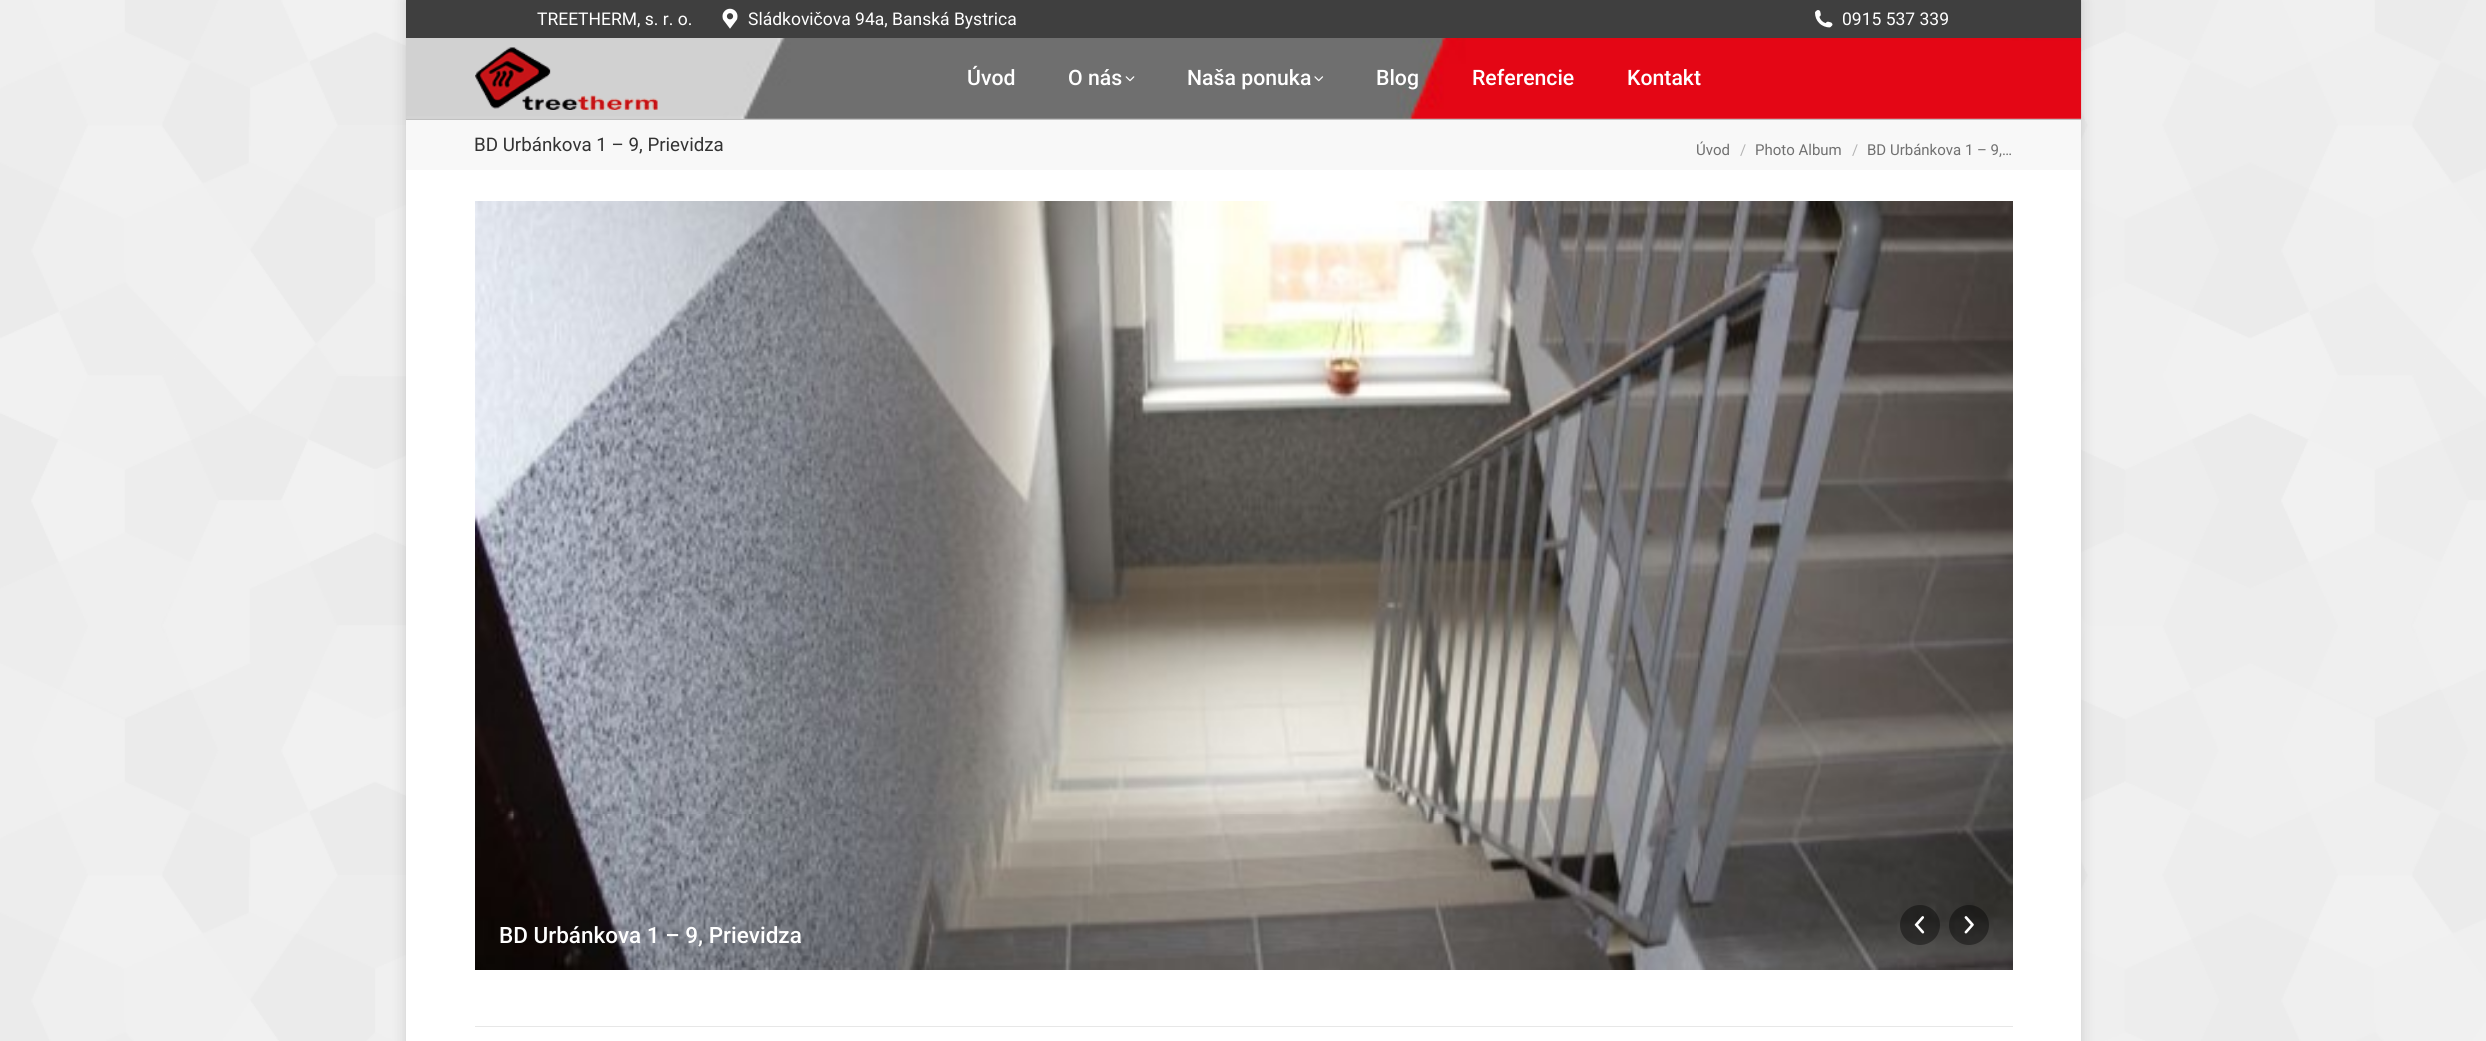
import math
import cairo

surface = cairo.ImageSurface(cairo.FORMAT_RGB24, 2486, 1041)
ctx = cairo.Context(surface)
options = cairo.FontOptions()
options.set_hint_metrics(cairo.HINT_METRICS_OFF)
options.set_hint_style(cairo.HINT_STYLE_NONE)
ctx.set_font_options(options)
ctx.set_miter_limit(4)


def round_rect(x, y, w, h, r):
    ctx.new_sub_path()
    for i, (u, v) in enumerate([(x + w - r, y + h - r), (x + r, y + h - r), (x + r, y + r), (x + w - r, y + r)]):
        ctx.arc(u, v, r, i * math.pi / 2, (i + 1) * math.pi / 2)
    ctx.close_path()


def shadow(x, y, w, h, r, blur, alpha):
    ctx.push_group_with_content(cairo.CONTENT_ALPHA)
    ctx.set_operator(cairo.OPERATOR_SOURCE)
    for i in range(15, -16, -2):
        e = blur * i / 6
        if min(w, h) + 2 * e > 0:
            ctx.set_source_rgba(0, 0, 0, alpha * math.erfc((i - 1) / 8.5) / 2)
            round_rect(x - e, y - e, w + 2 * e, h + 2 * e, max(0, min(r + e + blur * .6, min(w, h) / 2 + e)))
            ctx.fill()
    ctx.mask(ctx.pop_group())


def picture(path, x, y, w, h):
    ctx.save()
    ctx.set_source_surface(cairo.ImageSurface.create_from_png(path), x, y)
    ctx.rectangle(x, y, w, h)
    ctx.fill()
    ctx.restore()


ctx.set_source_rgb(0.969, 0.969, 0.969)
ctx.paint()
picture("img1.png", 0, 0, 2486, 1041)
ctx.set_source_rgb(1, 1, 1)
ctx.rectangle(406, 170, 1675, 871)
ctx.fill()
ctx.save()
ctx.set_fill_rule(cairo.FILL_RULE_EVEN_ODD)
ctx.new_path()
ctx.move_to(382, 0)
ctx.line_to(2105, 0)
ctx.line_to(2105, 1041)
ctx.line_to(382, 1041)
ctx.close_path()
ctx.move_to(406, 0)
ctx.line_to(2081, 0)
ctx.line_to(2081, 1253)
ctx.line_to(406, 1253)
ctx.close_path()
ctx.clip()
ctx.set_source_rgb(0, 0, 0)
shadow(406, 0, 1675, 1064, 0, 7.5, 0.15)
ctx.restore()
ctx.set_source_rgb(0.82, 0.82, 0.82)
ctx.rectangle(406, 38, 1675, 81)
ctx.fill()
picture("img2.png", 406, 0, 1676, 119)
ctx.set_source_rgb(0.753, 0.753, 0.753)
ctx.rectangle(406, 119, 1675, 1)
ctx.fill()
ctx.set_source_rgb(0.247, 0.247, 0.247)
ctx.rectangle(406, 0, 1675, 38)
ctx.fill()
ctx.select_font_face("Roboto")
ctx.set_font_size(17.5)
ctx.set_source_rgb(1, 1, 1)
ctx.move_to(537, 25)
ctx.show_text("TREETHERM, s. r. o.")
picture("img3.png", 722, 8, 16, 21)
ctx.move_to(748, 25)
ctx.show_text("Sládkovičova 94a, Banská Bystrica")
picture("img4.png", 1815, 10, 18, 18)
ctx.move_to(1842, 25)
ctx.show_text("0915 537 339")
picture("img5.png", 475, 47, 183, 63)
ctx.select_font_face("Roboto Medium")
ctx.set_font_size(21.25)
ctx.move_to(967, 85)
ctx.show_text("Úvod")
ctx.move_to(1068, 85)
ctx.show_text("O nás")
picture("img6.png", 1125, 76, 10, 6)
ctx.move_to(1187, 85)
ctx.show_text("Naša ponuka")
picture("img7.png", 1314, 76, 10, 6)
ctx.move_to(1376, 85)
ctx.show_text("Blog")
ctx.move_to(1472, 85)
ctx.show_text("Referencie")
ctx.move_to(1627, 85)
ctx.show_text("Kontakt")
ctx.set_source_rgb(0.969, 0.969, 0.969)
ctx.rectangle(406, 120, 1675, 50)
ctx.fill()
ctx.select_font_face("Roboto")
ctx.set_font_size(18.75)
ctx.set_source_rgb(0.2, 0.2, 0.2)
ctx.move_to(474, 151)
ctx.show_text("BD Urbánkova 1 – 9, Prievidza")
ctx.set_font_size(15)
ctx.set_source_rgb(0.439, 0.439, 0.439)
ctx.move_to(1696, 155)
ctx.show_text("Úvod")
ctx.set_source_rgb(0.706, 0.706, 0.706)
ctx.move_to(1740, 155)
ctx.show_text("/")
ctx.set_source_rgb(0.439, 0.439, 0.439)
ctx.move_to(1755, 155)
ctx.show_text("Photo Album")
ctx.set_source_rgb(0.706, 0.706, 0.706)
ctx.move_to(1852, 155)
ctx.show_text("/")
ctx.set_source_rgb(0.439, 0.439, 0.439)
ctx.move_to(1867, 155)
ctx.show_text("BD Urbánkova 1 – 9,…")
picture("img8.png", 475, 201, 1538, 769)
ctx.select_font_face("Roboto Medium")
ctx.set_font_size(22.5)
ctx.set_source_rgb(1, 1, 1)
ctx.move_to(499, 943)
ctx.show_text("BD Urbánkova 1 – 9, Prievidza")
ctx.set_source_rgba(0, 0, 0, 0.4)
ctx.new_path()
ctx.arc(1920, 925, 20, 0, 2 * math.pi)
ctx.fill()
picture("img9.png", 1914, 916, 11, 18)
ctx.arc(1969, 925, 20, 0, 2 * math.pi)
ctx.fill()
picture("img10.png", 1964, 916, 10, 18)
ctx.set_source_rgb(0.906, 0.906, 0.906)
ctx.rectangle(475, 1026, 1538, 1)
ctx.fill()
surface.write_to_png("page.png")
